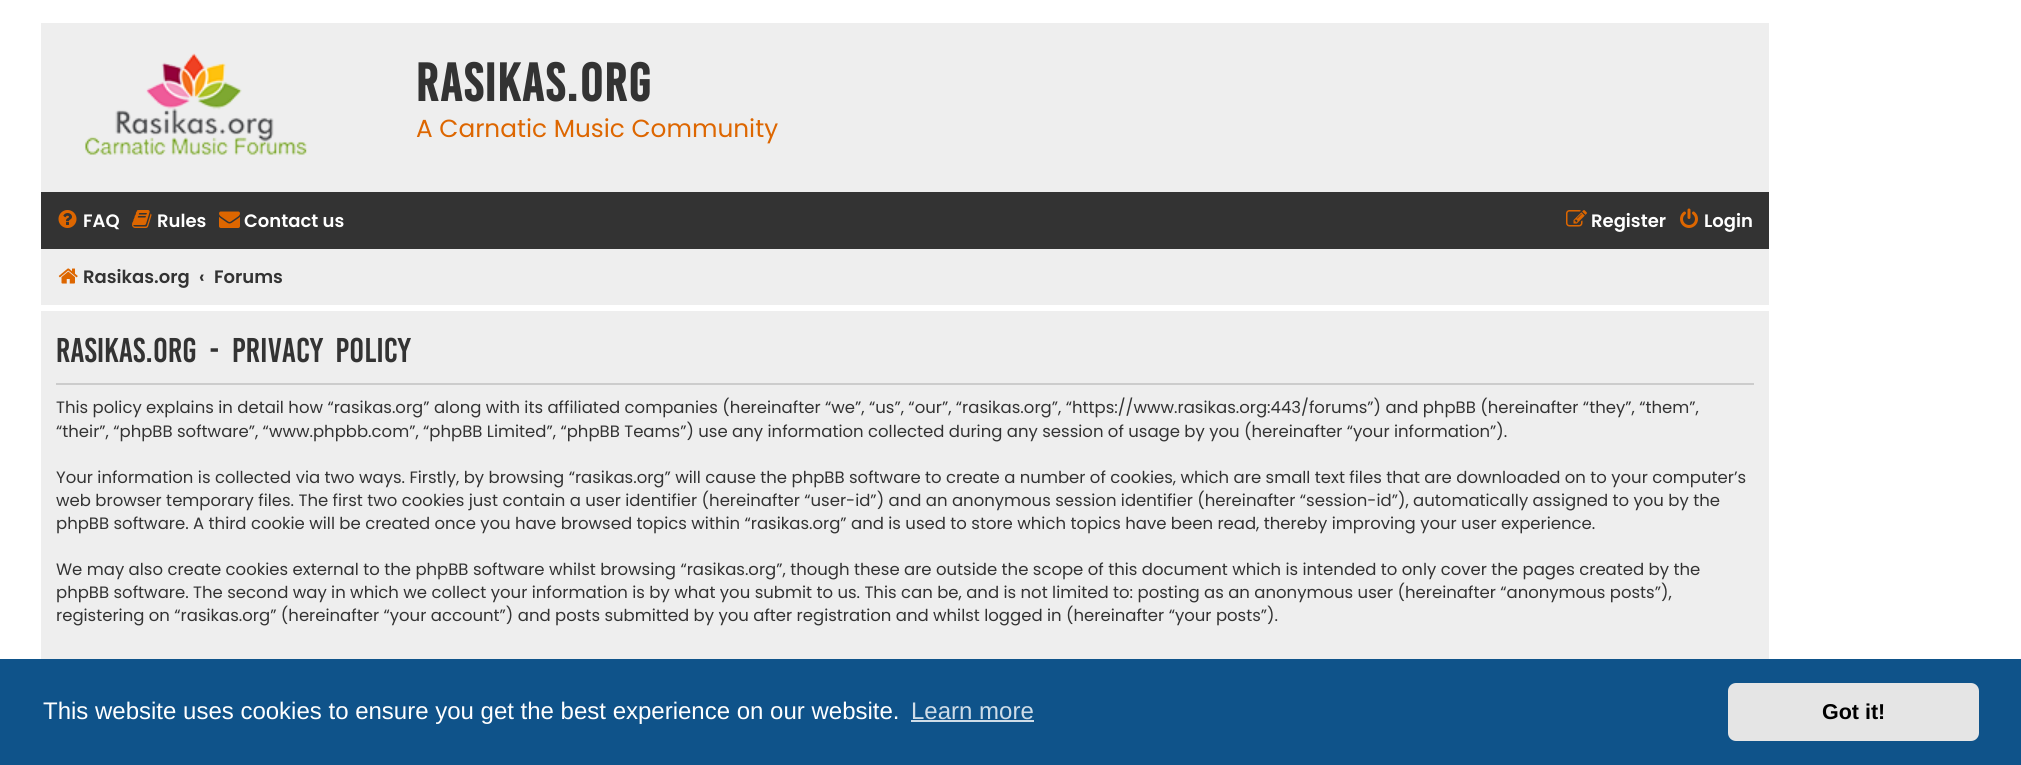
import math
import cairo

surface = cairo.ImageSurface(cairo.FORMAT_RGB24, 2021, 765)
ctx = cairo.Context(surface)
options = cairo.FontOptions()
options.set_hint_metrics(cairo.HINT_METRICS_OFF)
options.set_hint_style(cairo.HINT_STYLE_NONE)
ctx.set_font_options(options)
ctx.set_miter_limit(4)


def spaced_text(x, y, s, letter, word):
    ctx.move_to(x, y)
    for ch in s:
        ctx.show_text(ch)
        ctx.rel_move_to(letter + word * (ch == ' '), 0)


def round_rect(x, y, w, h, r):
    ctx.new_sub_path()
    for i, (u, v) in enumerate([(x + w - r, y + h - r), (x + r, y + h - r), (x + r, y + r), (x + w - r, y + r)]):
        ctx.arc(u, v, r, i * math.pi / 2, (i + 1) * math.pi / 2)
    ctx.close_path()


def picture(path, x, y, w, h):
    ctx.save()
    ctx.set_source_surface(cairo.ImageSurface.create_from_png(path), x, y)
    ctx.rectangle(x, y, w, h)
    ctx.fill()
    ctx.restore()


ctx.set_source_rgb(1, 1, 1)
ctx.paint()
ctx.set_source_rgb(0.933, 0.933, 0.933)
ctx.rectangle(41, 23, 1728, 169)
ctx.fill()
picture("img1.png", 85, 53, 222, 102)
ctx.select_font_face("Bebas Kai", cairo.FONT_SLANT_NORMAL, cairo.FONT_WEIGHT_BOLD)
ctx.set_font_size(41.25)
ctx.set_source_rgb(0.2, 0.2, 0.2)
spaced_text(416, 101, "rasikas.org", 1.5, 0)
ctx.select_font_face("Poppins")
ctx.set_font_size(24.75)
ctx.set_source_rgb(0.867, 0.4, 0)
ctx.move_to(416, 137)
ctx.show_text("A Carnatic Music Community")
ctx.set_source_rgb(0.2, 0.2, 0.2)
ctx.rectangle(41, 192, 1728, 57)
ctx.fill()
picture("img2.png", 58, 210, 19, 18)
ctx.select_font_face("Poppins SemiBold")
ctx.set_font_size(18)
ctx.set_source_rgb(1, 1, 1)
ctx.move_to(83, 227)
ctx.show_text("FAQ")
picture("img3.png", 132, 210, 20, 18)
ctx.move_to(157, 227)
ctx.show_text("Rules")
picture("img4.png", 219, 211, 21, 17)
ctx.move_to(244, 227)
ctx.show_text("Contact us")
picture("img5.png", 1566, 210, 21, 17)
ctx.move_to(1591, 227)
ctx.show_text("Register")
picture("img6.png", 1680, 208, 18, 20)
ctx.move_to(1704, 227)
ctx.show_text("Login")
ctx.set_source_rgb(0.933, 0.933, 0.933)
ctx.rectangle(41, 249, 1728, 56)
ctx.fill()
picture("img7.png", 58, 268, 20, 16)
ctx.set_source_rgb(0.2, 0.2, 0.2)
ctx.move_to(83, 283)
ctx.show_text("Rasikas.org")
ctx.move_to(199, 283)
ctx.show_text("‹")
ctx.move_to(214, 283)
ctx.show_text("Forums")
ctx.set_source_rgb(0.933, 0.933, 0.933)
ctx.rectangle(41, 311, 1728, 348)
ctx.fill()
ctx.set_source_rgb(0.8, 0.8, 0.8)
ctx.rectangle(56, 383, 1698, 2)
ctx.fill()
ctx.select_font_face("Bebas Kai")
ctx.set_font_size(26.4)
ctx.set_source_rgb(0.2, 0.2, 0.2)
spaced_text(56, 362, "rasikas.org - Privacy policy", 0, 6)
ctx.select_font_face("Poppins")
ctx.set_font_size(16.5)
ctx.move_to(56, 413)
ctx.show_text("This policy explains in detail how “rasikas.org” along with its affiliated companies (hereinafter “we”, “us”, “our”, “rasikas.org”, “https://www.rasikas.org:443/forums”) and phpBB (hereinafter “they”, “them”,")
ctx.move_to(56, 437)
ctx.show_text("“their”, “phpBB software”, “www.phpbb.com”, “phpBB Limited”, “phpBB Teams”) use any information collected during any session of usage by you (hereinafter “your information”).")
ctx.move_to(56, 483)
ctx.show_text("Your information is collected via two ways. Firstly, by browsing “rasikas.org” will cause the phpBB software to create a number of cookies, which are small text files that are downloaded on to your computer’s")
ctx.move_to(56, 506)
ctx.show_text("web browser temporary files. The first two cookies just contain a user identifier (hereinafter “user-id”) and an anonymous session identifier (hereinafter “session-id”), automatically assigned to you by the")
ctx.move_to(56, 529)
ctx.show_text("phpBB software. A third cookie will be created once you have browsed topics within “rasikas.org” and is used to store which topics have been read, thereby improving your user experience.")
ctx.move_to(56, 575)
ctx.show_text("We may also create cookies external to the phpBB software whilst browsing “rasikas.org”, though these are outside the scope of this document which is intended to only cover the pages created by the")
ctx.move_to(56, 598)
ctx.show_text("phpBB software. The second way in which we collect your information is by what you submit to us. This can be, and is not limited to: posting as an anonymous user (hereinafter “anonymous posts”),")
ctx.move_to(56, 621)
ctx.show_text("registering on “rasikas.org” (hereinafter “your account”) and posts submitted by you after registration and whilst logged in (hereinafter “your posts”).")
ctx.set_source_rgb(0.059, 0.325, 0.541)
ctx.rectangle(0, 659, 2021, 106)
ctx.fill()
ctx.select_font_face("Liberation Sans")
ctx.set_font_size(24)
ctx.set_source_rgb(1, 1, 1)
ctx.move_to(43, 719)
ctx.show_text("This website uses cookies to ensure you get the best experience on our website.")
ctx.set_source_rgb(0.812, 0.867, 0.91)
ctx.move_to(911, 719)
ctx.show_text("Learn more")
ctx.rectangle(911, 720, 123, 2)
ctx.fill()
ctx.set_source_rgb(0.898, 0.898, 0.898)
round_rect(1728, 683, 251, 58, 8)
ctx.fill()
ctx.select_font_face("Liberation Sans", cairo.FONT_SLANT_NORMAL, cairo.FONT_WEIGHT_BOLD)
ctx.set_font_size(21.5)
ctx.set_source_rgb(0, 0, 0)
ctx.move_to(1822, 719)
ctx.show_text("Got it!")
surface.write_to_png("page.png")
